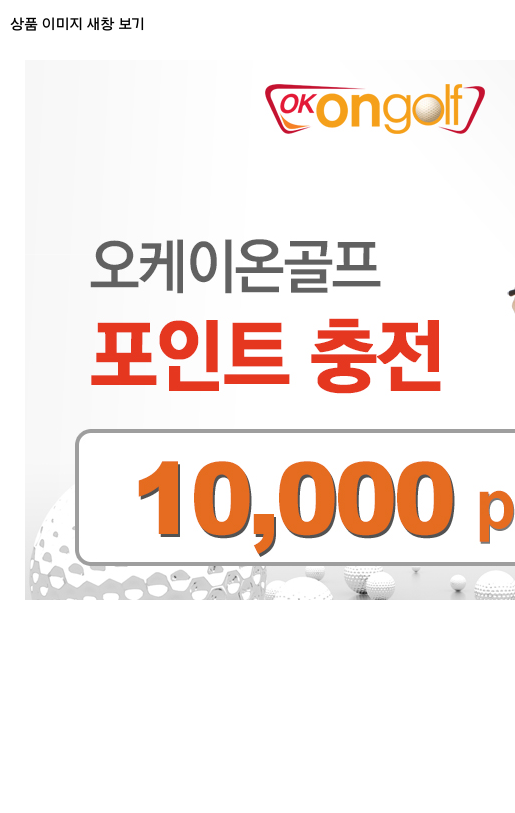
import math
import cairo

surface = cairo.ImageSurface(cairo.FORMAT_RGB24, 515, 813)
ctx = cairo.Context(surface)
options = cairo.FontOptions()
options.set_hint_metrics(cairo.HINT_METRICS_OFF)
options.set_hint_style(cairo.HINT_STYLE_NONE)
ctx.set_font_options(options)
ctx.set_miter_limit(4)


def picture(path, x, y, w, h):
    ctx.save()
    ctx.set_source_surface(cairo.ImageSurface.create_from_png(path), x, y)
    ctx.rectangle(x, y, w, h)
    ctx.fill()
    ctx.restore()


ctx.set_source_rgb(1, 1, 1)
ctx.paint()
ctx.select_font_face("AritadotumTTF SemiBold")
ctx.set_font_size(15)
ctx.set_source_rgb(0, 0, 0)
ctx.move_to(10, 29)
ctx.show_text("상품 이미지 새창 보기")
picture("img1.png", 25, 60, 490, 540)
surface.write_to_png("page.png")
